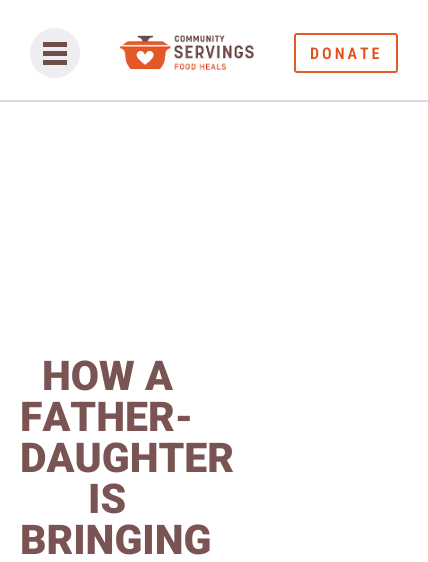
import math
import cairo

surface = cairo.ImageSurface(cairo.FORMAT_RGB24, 428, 562)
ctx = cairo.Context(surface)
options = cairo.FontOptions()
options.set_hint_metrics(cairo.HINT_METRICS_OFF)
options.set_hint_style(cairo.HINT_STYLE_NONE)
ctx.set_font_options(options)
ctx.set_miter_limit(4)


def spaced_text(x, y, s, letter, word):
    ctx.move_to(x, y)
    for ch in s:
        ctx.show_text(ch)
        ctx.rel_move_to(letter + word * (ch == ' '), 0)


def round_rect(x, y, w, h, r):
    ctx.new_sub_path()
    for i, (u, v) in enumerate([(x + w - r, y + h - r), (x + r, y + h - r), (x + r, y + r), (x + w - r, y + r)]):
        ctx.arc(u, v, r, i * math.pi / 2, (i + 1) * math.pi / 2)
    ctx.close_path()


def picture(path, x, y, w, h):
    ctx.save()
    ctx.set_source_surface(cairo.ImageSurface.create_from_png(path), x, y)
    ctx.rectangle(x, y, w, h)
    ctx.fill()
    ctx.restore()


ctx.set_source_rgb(1, 1, 1)
ctx.paint()
ctx.set_source_rgb(0.851, 0.851, 0.902)
ctx.rectangle(0, 100, 428, 2)
ctx.fill()
ctx.set_source_rgb(0.933, 0.933, 0.949)
ctx.arc(55, 53, 25, 0, 2 * math.pi)
ctx.fill()
ctx.set_source_rgb(0.431, 0.302, 0.294)
ctx.rectangle(43, 51, 24, 5)
ctx.fill()
ctx.rectangle(43, 42, 24, 5)
ctx.fill()
ctx.rectangle(43, 60, 24, 5)
ctx.fill()
picture("img1.png", 119, 35, 135, 35)
round_rect(295, 34, 102, 38, 2)
ctx.set_source_rgb(0.89, 0.349, 0.157)
ctx.stroke()
ctx.select_font_face("Roboto Condensed SemiBold")
ctx.set_font_size(16)
ctx.set_source_rgb(0.878, 0.314, 0.114)
spaced_text(310, 59, "DONATE", 3, 0)
ctx.select_font_face("Roboto Black")
ctx.set_font_size(41)
ctx.set_source_rgb(0.475, 0.329, 0.325)
ctx.move_to(42, 390)
ctx.show_text("HOW A")
ctx.move_to(20, 431)
ctx.show_text("FATHER-")
ctx.move_to(20, 472)
ctx.show_text("DAUGHTER")
ctx.move_to(88, 513)
ctx.show_text("IS")
ctx.move_to(20, 554)
ctx.show_text("BRINGING")
surface.write_to_png("page.png")
